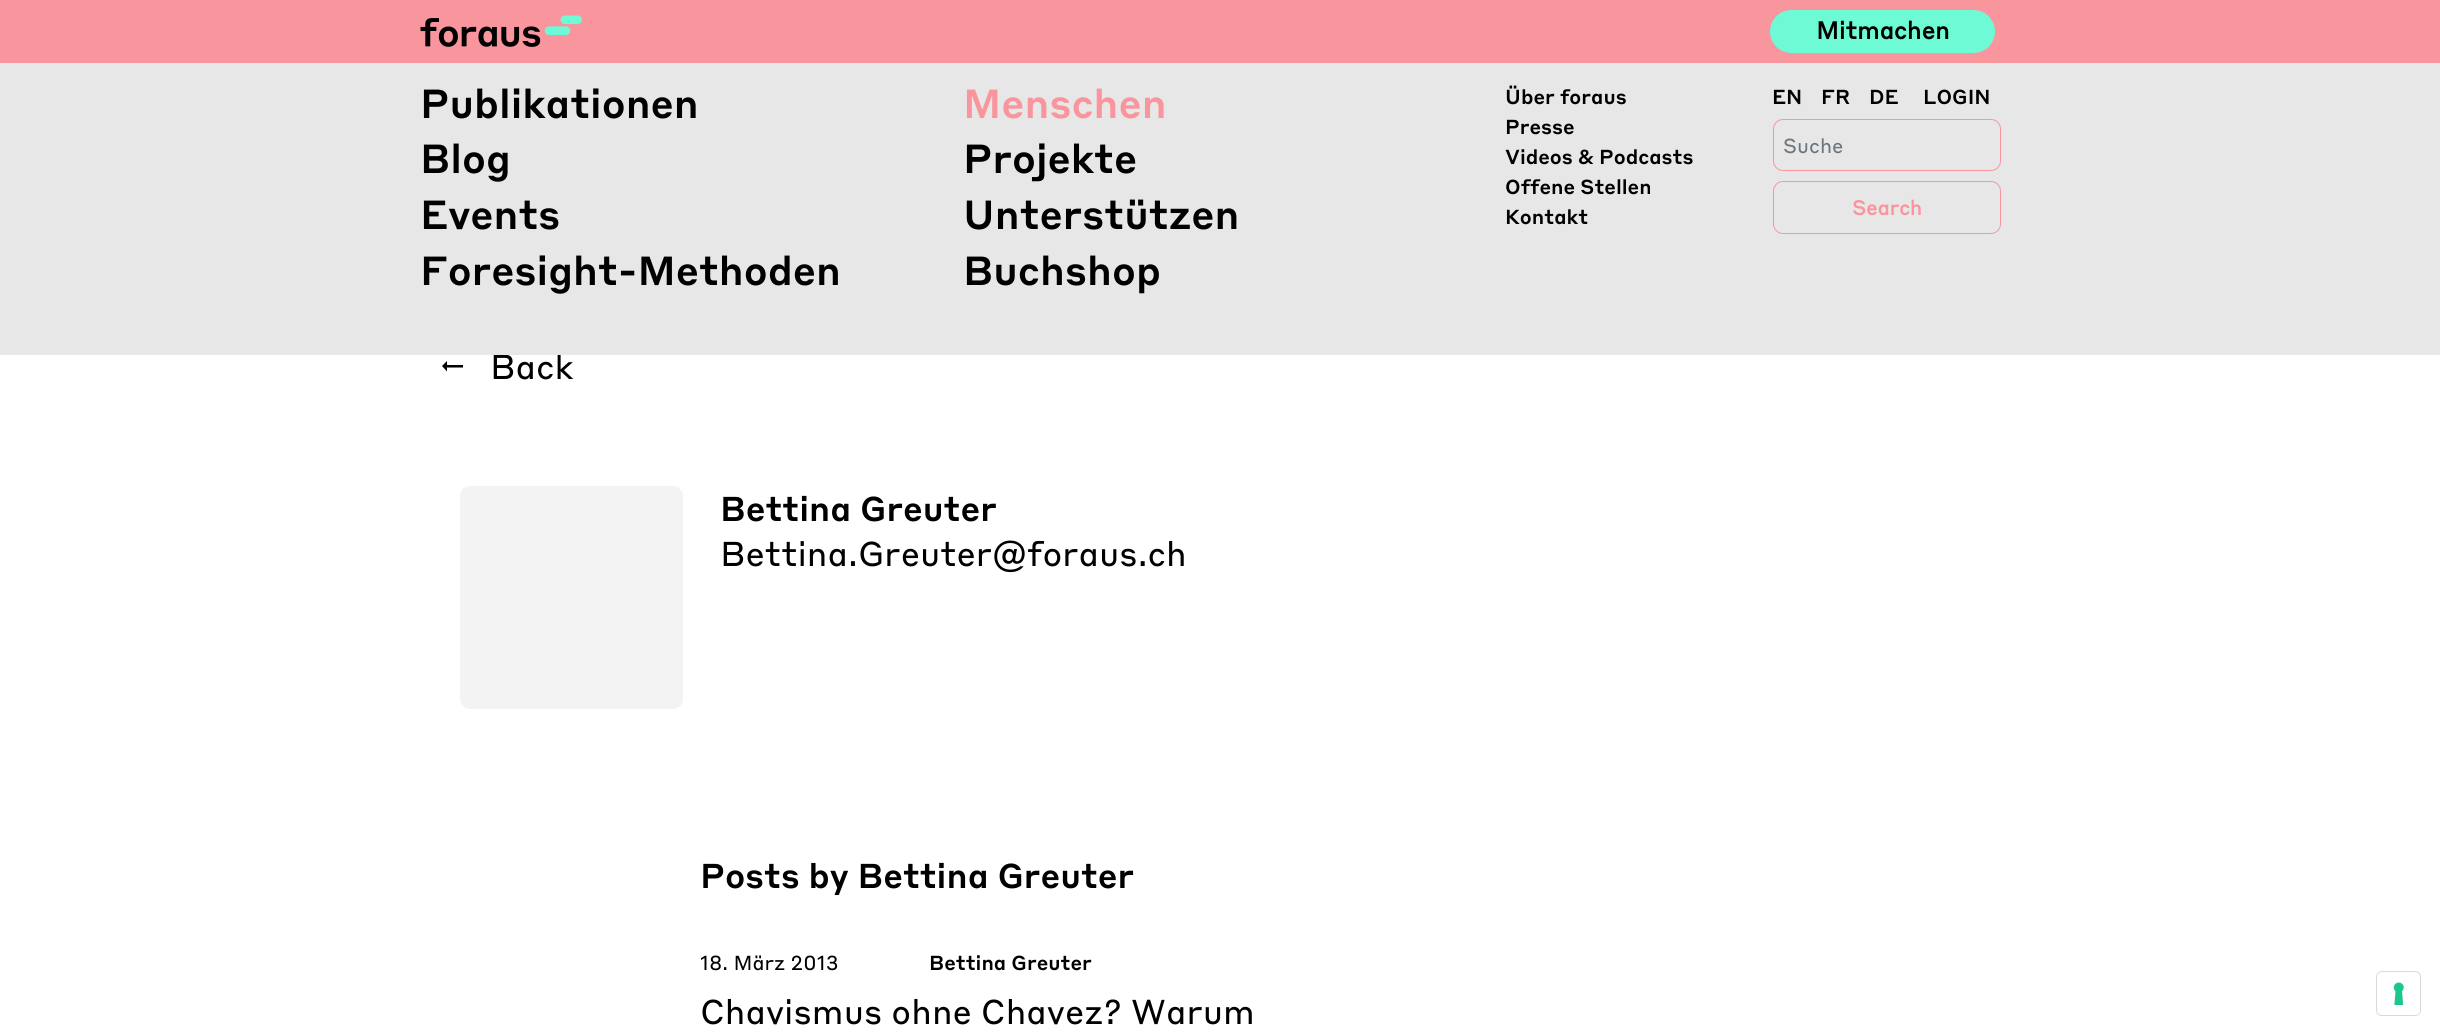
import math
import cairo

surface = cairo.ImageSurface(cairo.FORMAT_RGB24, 2440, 1034)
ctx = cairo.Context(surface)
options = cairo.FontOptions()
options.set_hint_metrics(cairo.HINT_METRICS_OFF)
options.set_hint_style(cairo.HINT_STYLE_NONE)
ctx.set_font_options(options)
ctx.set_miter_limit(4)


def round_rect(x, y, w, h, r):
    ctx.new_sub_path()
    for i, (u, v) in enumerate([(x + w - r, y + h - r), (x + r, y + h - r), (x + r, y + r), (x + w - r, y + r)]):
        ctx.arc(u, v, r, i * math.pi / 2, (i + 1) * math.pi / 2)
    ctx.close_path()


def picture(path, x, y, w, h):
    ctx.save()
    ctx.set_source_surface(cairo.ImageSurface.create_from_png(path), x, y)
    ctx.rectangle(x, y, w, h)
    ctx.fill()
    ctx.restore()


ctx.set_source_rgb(1, 1, 1)
ctx.paint()
ctx.set_source_rgb(0.976, 0.584, 0.616)
ctx.rectangle(0, 0, 2440, 63)
ctx.fill()
picture("img1.png", 420, 15, 162, 32)
ctx.set_source_rgb(0.431, 0.98, 0.835)
round_rect(1770, 10, 225, 43, 21.5)
ctx.fill()
ctx.select_font_face("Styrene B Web", cairo.FONT_SLANT_NORMAL, cairo.FONT_WEIGHT_BOLD)
ctx.set_font_size(24)
ctx.set_source_rgb(0, 0, 0)
ctx.move_to(1816, 39)
ctx.show_text("Mitmachen")
ctx.select_font_face("Styrene B Web")
ctx.set_font_size(34)
ctx.move_to(490, 379)
ctx.show_text("Back")
ctx.set_source_rgb(0.906, 0.906, 0.906)
ctx.rectangle(0, 63, 2440, 292)
ctx.fill()
ctx.select_font_face("Styrene B Web Medium")
ctx.set_font_size(40)
ctx.set_source_rgb(0, 0, 0)
ctx.move_to(420, 118)
ctx.show_text("Publikationen")
ctx.set_source_rgb(0.976, 0.584, 0.616)
ctx.move_to(963, 118)
ctx.show_text("Menschen")
ctx.set_source_rgb(0, 0, 0)
ctx.move_to(420, 173)
ctx.show_text("Blog")
ctx.move_to(963, 173)
ctx.show_text("Projekte")
ctx.move_to(420, 229)
ctx.show_text("Events")
ctx.move_to(963, 229)
ctx.show_text("Unterstützen")
ctx.move_to(420, 285)
ctx.show_text("Foresight-Methoden")
ctx.move_to(963, 285)
ctx.show_text("Buchshop")
ctx.set_font_size(20)
ctx.move_to(1505, 104)
ctx.show_text("Über foraus")
ctx.move_to(1505, 134)
ctx.show_text("Presse")
ctx.move_to(1505, 164)
ctx.show_text("Videos & Podcasts")
ctx.move_to(1505, 194)
ctx.show_text("Offene Stellen")
ctx.move_to(1505, 224)
ctx.show_text("Kontakt")
ctx.move_to(1772, 104)
ctx.show_text("EN")
ctx.move_to(1821, 104)
ctx.show_text("FR")
ctx.move_to(1869, 104)
ctx.show_text("DE")
ctx.move_to(1923, 104)
ctx.show_text("LOGIN")
round_rect(1773.5, 119.5, 227, 51, 9.5)
ctx.set_source_rgb(0.976, 0.584, 0.616)
ctx.set_line_width(1)
ctx.stroke()
ctx.select_font_face("Styrene B Web")
ctx.set_source_rgb(0.424, 0.459, 0.49)
ctx.move_to(1783, 153)
ctx.show_text("Suche")
round_rect(1773.5, 181.5, 227, 52, 9.5)
ctx.set_source_rgb(0.976, 0.584, 0.616)
ctx.stroke()
ctx.select_font_face("Styrene B Web", cairo.FONT_SLANT_NORMAL, cairo.FONT_WEIGHT_BOLD)
ctx.move_to(1852, 215)
ctx.show_text("Search")
ctx.set_source_rgb(0, 0, 0)
ctx.new_path()
ctx.move_to(447, 367.5)
ctx.line_to(463, 367.5)
ctx.line_to(463, 365)
ctx.line_to(447, 365)
ctx.line_to(447, 361)
ctx.line_to(442, 366)
ctx.line_to(447, 371.5)
ctx.close_path()
ctx.fill()
ctx.set_source_rgb(0.953, 0.953, 0.953)
round_rect(460, 486, 223, 223, 10)
ctx.fill()
ctx.select_font_face("Styrene B Web Medium")
ctx.set_font_size(34)
ctx.set_source_rgb(0, 0, 0)
ctx.move_to(720, 521)
ctx.show_text("Bettina Greuter")
ctx.select_font_face("Styrene B Web")
ctx.move_to(720, 566)
ctx.show_text("Bettina.Greuter@foraus.ch")
ctx.select_font_face("Styrene B Web Medium")
ctx.move_to(700, 888)
ctx.show_text("Posts by Bettina Greuter")
ctx.select_font_face("Styrene B Web")
ctx.set_font_size(20)
ctx.move_to(700, 970)
ctx.show_text("18. März 2013")
ctx.select_font_face("Styrene B Web Medium")
ctx.move_to(929, 970)
ctx.show_text("Bettina Greuter")
ctx.select_font_face("Styrene B Web")
ctx.set_font_size(34)
ctx.move_to(700, 1024)
ctx.show_text("Chavismus ohne Chavez? Warum")
round_rect(2376.5, 971.5, 44, 44, 5.5)
ctx.set_source_rgb(0.851, 0.851, 0.851)
ctx.stroke()
ctx.set_source_rgb(1, 1, 1)
round_rect(2378, 973, 42, 42, 5)
ctx.fill()
picture("img2.png", 2393, 982, 11, 23)
surface.write_to_png("page.png")
